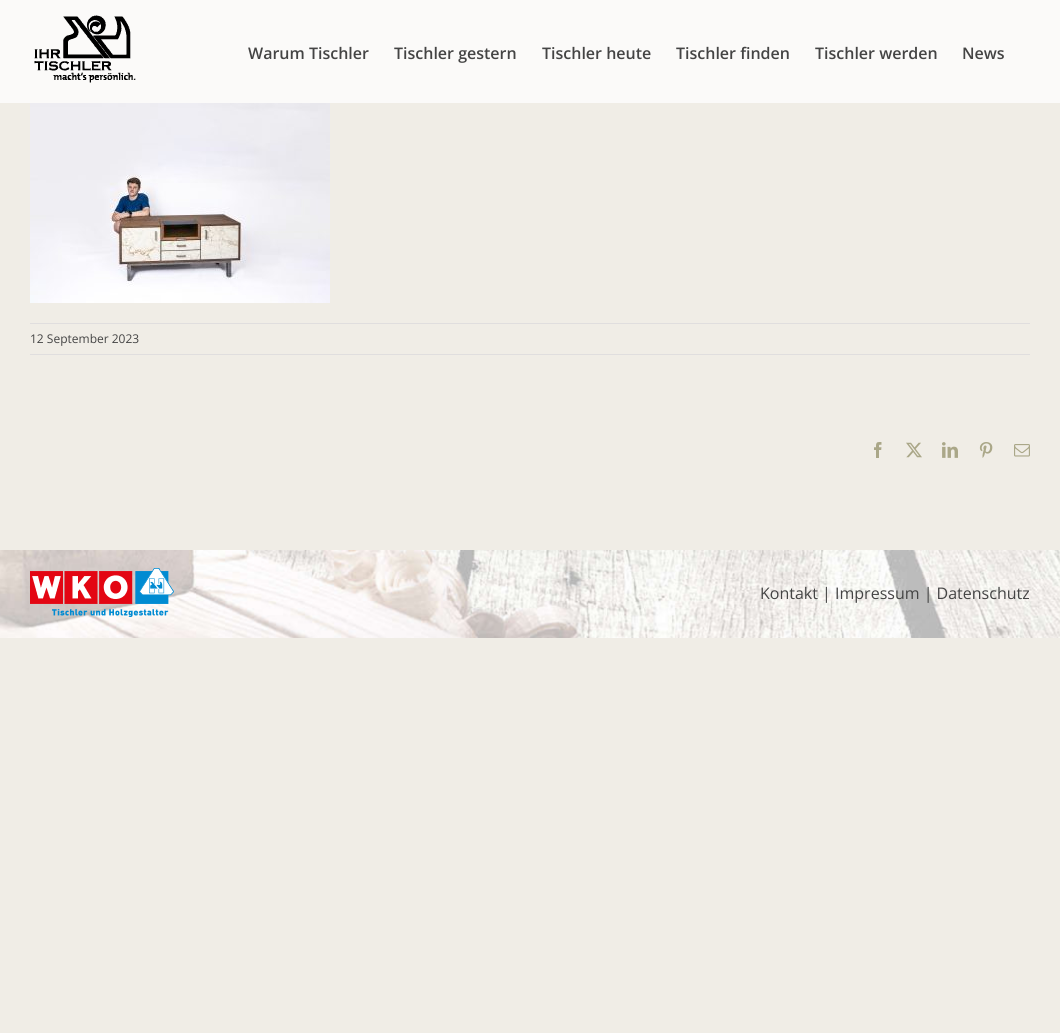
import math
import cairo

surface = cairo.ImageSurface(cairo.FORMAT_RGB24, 1060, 1033)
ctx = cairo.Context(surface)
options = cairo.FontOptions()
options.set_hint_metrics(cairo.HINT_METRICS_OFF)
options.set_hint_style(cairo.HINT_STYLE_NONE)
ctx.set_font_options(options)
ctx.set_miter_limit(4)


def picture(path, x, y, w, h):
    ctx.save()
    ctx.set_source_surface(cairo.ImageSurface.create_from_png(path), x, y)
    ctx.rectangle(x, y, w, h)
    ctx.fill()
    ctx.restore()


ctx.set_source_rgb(0.941, 0.929, 0.902)
ctx.paint()
ctx.set_source_rgb(0.984, 0.98, 0.976)
ctx.rectangle(0, 0, 1060, 103)
ctx.fill()
picture("img1.png", 34, 15, 102, 68)
ctx.select_font_face("Open Sans SemiBold")
ctx.set_font_size(16)
ctx.set_source_rgb(0.267, 0.267, 0.267)
ctx.move_to(248, 59)
ctx.show_text("Warum Tischler")
ctx.move_to(394, 59)
ctx.show_text("Tischler gestern")
ctx.move_to(542, 59)
ctx.show_text("Tischler heute")
ctx.move_to(676, 59)
ctx.show_text("Tischler finden")
ctx.move_to(815, 59)
ctx.show_text("Tischler werden")
ctx.move_to(962, 59)
ctx.show_text("News")
picture("img2.png", 30, 103, 300, 200)
ctx.set_source_rgb(0.878, 0.871, 0.871)
ctx.rectangle(30, 323, 1000, 1)
ctx.fill()
ctx.rectangle(30, 354, 1000, 1)
ctx.fill()
ctx.select_font_face("Open Sans")
ctx.set_font_size(12)
ctx.set_source_rgb(0.267, 0.267, 0.267)
ctx.move_to(30, 343)
ctx.show_text("12 September 2023")
picture("img3.png", 874, 442, 8, 16)
picture("img4.png", 906, 442, 16, 16)
picture("img5.png", 942, 442, 16, 16)
picture("img6.png", 979, 442, 14, 16)
picture("img7.png", 1014, 444, 16, 13)
picture("img8.png", 0, 550, 1060, 88)
picture("img9.png", 30, 568, 144, 49)
ctx.set_font_size(16)
ctx.move_to(760, 599)
ctx.show_text("Kontakt | Impressum | Datenschutz")
surface.write_to_png("page.png")
